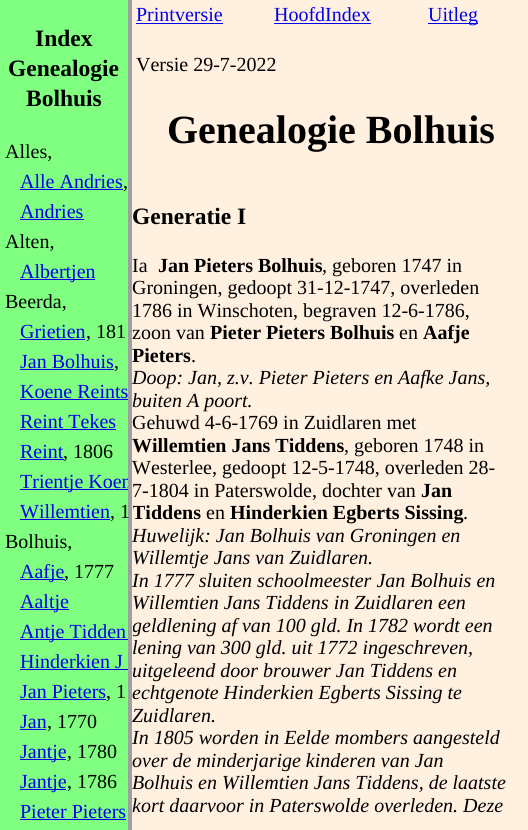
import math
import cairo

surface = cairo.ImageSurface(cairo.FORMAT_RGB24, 528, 830)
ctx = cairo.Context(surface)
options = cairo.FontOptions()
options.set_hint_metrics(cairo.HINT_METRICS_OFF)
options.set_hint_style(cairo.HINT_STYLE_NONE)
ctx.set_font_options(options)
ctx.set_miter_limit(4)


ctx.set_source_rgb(1, 0.941, 0.878)
ctx.paint()
ctx.set_source_rgb(0.502, 1, 0.502)
ctx.rectangle(0, 0, 128, 830)
ctx.fill()
ctx.set_source_rgb(0.624, 0.624, 0.624)
ctx.rectangle(128, 0, 4, 830)
ctx.fill()
ctx.select_font_face("Liberation Serif", cairo.FONT_SLANT_NORMAL, cairo.FONT_WEIGHT_BOLD)
ctx.set_font_size(23.5)
ctx.set_source_rgb(0, 0, 0)
ctx.move_to(35, 46)
ctx.show_text("Index")
ctx.move_to(8, 76)
ctx.show_text("Genealogie")
ctx.move_to(26, 106)
ctx.show_text("Bolhuis")
ctx.select_font_face("Liberation Serif")
ctx.set_font_size(20)
ctx.move_to(5, 158)
ctx.show_text("Alles,")
ctx.set_source_rgb(0, 0, 0.933)
ctx.move_to(20, 188)
ctx.show_text("Alle Andries")
ctx.rectangle(20, 189, 103, 1)
ctx.fill()
ctx.set_source_rgb(0, 0, 0)
ctx.move_to(123, 188)
ctx.show_text(",")
ctx.set_source_rgb(0, 0, 0.933)
ctx.move_to(20, 218)
ctx.show_text("Andries")
ctx.rectangle(20, 219, 64, 1)
ctx.fill()
ctx.set_source_rgb(0, 0, 0)
ctx.move_to(5, 248)
ctx.show_text("Alten,")
ctx.set_source_rgb(0, 0, 0.933)
ctx.rectangle(20, 279, 75, 1)
ctx.fill()
ctx.move_to(20, 278)
ctx.show_text("Albertjen")
ctx.set_source_rgb(0, 0, 0)
ctx.move_to(5, 308)
ctx.show_text("Beerda,")
ctx.set_source_rgb(0, 0, 0.933)
ctx.move_to(20, 338)
ctx.show_text("Grietien")
ctx.rectangle(20, 339, 65, 1)
ctx.fill()
ctx.set_source_rgb(0, 0, 0)
ctx.move_to(86, 338)
ctx.show_text(", 181")
ctx.set_source_rgb(0, 0, 0.933)
ctx.move_to(20, 368)
ctx.show_text("Jan Bolhuis")
ctx.rectangle(20, 369, 94, 1)
ctx.fill()
ctx.set_source_rgb(0, 0, 0)
ctx.move_to(114, 368)
ctx.show_text(",")
ctx.set_source_rgb(0, 0, 0.933)
ctx.move_to(20, 398)
ctx.show_text("Koene Reints")
ctx.rectangle(20, 399, 108, 1)
ctx.fill()
ctx.move_to(20, 428)
ctx.show_text("Reint Tekes")
ctx.rectangle(20, 429, 96, 1)
ctx.fill()
ctx.move_to(20, 458)
ctx.show_text("Reint")
ctx.rectangle(20, 459, 44, 1)
ctx.fill()
ctx.set_source_rgb(0, 0, 0)
ctx.move_to(63, 458)
ctx.show_text(", 1806")
ctx.set_source_rgb(0, 0, 0.933)
ctx.rectangle(20, 489, 108, 1)
ctx.fill()
ctx.save()
ctx.rectangle(0, 0, 128, 830)
ctx.clip()
ctx.move_to(20, 488)
ctx.show_text("Trientje Koen")
ctx.restore()
ctx.move_to(20, 518)
ctx.show_text("Willemtien")
ctx.rectangle(20, 519, 90, 1)
ctx.fill()
ctx.set_source_rgb(0, 0, 0)
ctx.move_to(110, 518)
ctx.show_text(", 1")
ctx.move_to(5, 548)
ctx.show_text("Bolhuis,")
ctx.set_source_rgb(0, 0, 0.933)
ctx.rectangle(20, 579, 45, 1)
ctx.fill()
ctx.move_to(20, 578)
ctx.show_text("Aafje")
ctx.set_source_rgb(0, 0, 0)
ctx.move_to(64, 578)
ctx.show_text(", 1777")
ctx.set_source_rgb(0, 0, 0.933)
ctx.rectangle(20, 609, 49, 1)
ctx.fill()
ctx.move_to(20, 608)
ctx.show_text("Aaltje")
ctx.rectangle(20, 639, 108, 1)
ctx.fill()
ctx.move_to(20, 638)
ctx.show_text("Antje Tidden")
ctx.move_to(20, 668)
ctx.show_text("Hinderkien J")
ctx.rectangle(20, 669, 108, 1)
ctx.fill()
ctx.move_to(20, 698)
ctx.show_text("Jan Pieters")
ctx.rectangle(20, 699, 86, 1)
ctx.fill()
ctx.set_source_rgb(0, 0, 0)
ctx.move_to(106, 698)
ctx.show_text(", 1")
ctx.set_source_rgb(0, 0, 0.933)
ctx.move_to(20, 728)
ctx.show_text("Jan")
ctx.rectangle(20, 729, 26, 1)
ctx.fill()
ctx.set_source_rgb(0, 0, 0)
ctx.move_to(47, 728)
ctx.show_text(", 1770")
ctx.set_source_rgb(0, 0, 0.933)
ctx.rectangle(20, 759, 46, 1)
ctx.fill()
ctx.move_to(20, 758)
ctx.show_text("Jantje")
ctx.set_source_rgb(0, 0, 0)
ctx.move_to(67, 758)
ctx.show_text(", 1780")
ctx.set_source_rgb(0, 0, 0.933)
ctx.rectangle(20, 789, 46, 1)
ctx.fill()
ctx.move_to(20, 788)
ctx.show_text("Jantje")
ctx.set_source_rgb(0, 0, 0)
ctx.move_to(67, 788)
ctx.show_text(", 1786")
ctx.set_source_rgb(0, 0, 0.933)
ctx.move_to(20, 818)
ctx.show_text("Pieter Pieters")
ctx.rectangle(20, 819, 106, 1)
ctx.fill()
ctx.move_to(136, 21)
ctx.show_text("Printversie")
ctx.rectangle(136, 23, 87, 1)
ctx.fill()
ctx.move_to(274, 21)
ctx.show_text("HoofdIndex")
ctx.rectangle(274, 23, 97, 1)
ctx.fill()
ctx.rectangle(428, 23, 50, 1)
ctx.fill()
ctx.move_to(428, 21)
ctx.show_text("Uitleg")
ctx.set_source_rgb(0, 0, 0)
ctx.move_to(136, 71)
ctx.show_text("Versie 29-7-2022")
ctx.select_font_face("Liberation Serif", cairo.FONT_SLANT_NORMAL, cairo.FONT_WEIGHT_BOLD)
ctx.set_font_size(40)
ctx.move_to(167, 143)
ctx.show_text("Genealogie Bolhuis")
ctx.set_font_size(23.5)
ctx.move_to(132, 224)
ctx.show_text("Generatie I")
ctx.select_font_face("Liberation Serif")
ctx.set_font_size(20)
ctx.move_to(132, 272)
ctx.show_text("Ia")
ctx.select_font_face("Liberation Serif", cairo.FONT_SLANT_NORMAL, cairo.FONT_WEIGHT_BOLD)
ctx.move_to(158, 272)
ctx.show_text("Jan Pieters Bolhuis")
ctx.select_font_face("Liberation Serif")
ctx.move_to(322, 272)
ctx.show_text(", geboren 1747 in")
ctx.move_to(132, 294)
ctx.show_text("Groningen, gedoopt 31-12-1747, overleden")
ctx.move_to(132, 317)
ctx.show_text("1786 in Winschoten, begraven 12-6-1786,")
ctx.move_to(132, 339)
ctx.show_text("zoon van")
ctx.select_font_face("Liberation Serif", cairo.FONT_SLANT_NORMAL, cairo.FONT_WEIGHT_BOLD)
ctx.move_to(210, 339)
ctx.show_text("Pieter Pieters Bolhuis")
ctx.select_font_face("Liberation Serif")
ctx.move_to(399, 339)
ctx.show_text("en")
ctx.select_font_face("Liberation Serif", cairo.FONT_SLANT_NORMAL, cairo.FONT_WEIGHT_BOLD)
ctx.move_to(423, 339)
ctx.show_text("Aafje")
ctx.move_to(132, 362)
ctx.show_text("Pieters")
ctx.select_font_face("Liberation Serif")
ctx.move_to(191, 362)
ctx.show_text(".")
ctx.select_font_face("Liberation Serif", cairo.FONT_SLANT_ITALIC)
ctx.move_to(132, 384)
ctx.show_text("Doop: Jan, z.v. Pieter Pieters en Aafke Jans,")
ctx.move_to(132, 407)
ctx.show_text("buiten A poort.")
ctx.select_font_face("Liberation Serif")
ctx.move_to(132, 429)
ctx.show_text("Gehuwd 4-6-1769 in Zuidlaren met")
ctx.select_font_face("Liberation Serif", cairo.FONT_SLANT_NORMAL, cairo.FONT_WEIGHT_BOLD)
ctx.move_to(132, 452)
ctx.show_text("Willemtien Jans Tiddens")
ctx.select_font_face("Liberation Serif")
ctx.move_to(344, 452)
ctx.show_text(", geboren 1748 in")
ctx.move_to(132, 474)
ctx.show_text("Westerlee, gedoopt 12-5-1748, overleden 28-")
ctx.move_to(132, 497)
ctx.show_text("7-1804 in Paterswolde, dochter van")
ctx.select_font_face("Liberation Serif", cairo.FONT_SLANT_NORMAL, cairo.FONT_WEIGHT_BOLD)
ctx.move_to(421, 497)
ctx.show_text("Jan")
ctx.save()
ctx.rectangle(133, 0, 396, 830)
ctx.clip()
ctx.move_to(132, 519)
ctx.show_text("Tiddens")
ctx.restore()
ctx.select_font_face("Liberation Serif")
ctx.move_to(206, 519)
ctx.show_text("en")
ctx.select_font_face("Liberation Serif", cairo.FONT_SLANT_NORMAL, cairo.FONT_WEIGHT_BOLD)
ctx.move_to(230, 519)
ctx.show_text("Hinderkien Egberts Sissing")
ctx.select_font_face("Liberation Serif")
ctx.move_to(463, 519)
ctx.show_text(".")
ctx.select_font_face("Liberation Serif", cairo.FONT_SLANT_ITALIC)
ctx.move_to(132, 542)
ctx.show_text("Huwelijk: Jan Bolhuis van Groningen en")
ctx.move_to(132, 564)
ctx.show_text("Willemtje Jans van Zuidlaren.")
ctx.move_to(132, 587)
ctx.show_text("In 1777 sluiten schoolmeester Jan Bolhuis en")
ctx.move_to(132, 609)
ctx.show_text("Willemtien Jans Tiddens in Zuidlaren een")
ctx.save()
ctx.rectangle(133, 0, 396, 830)
ctx.clip()
ctx.move_to(132, 632)
ctx.show_text("geldlening af van 100 gld. In 1782 wordt een")
ctx.restore()
ctx.move_to(132, 654)
ctx.show_text("lening van 300 gld. uit 1772 ingeschreven,")
ctx.move_to(132, 677)
ctx.show_text("uitgeleend door brouwer Jan Tiddens en")
ctx.move_to(132, 699)
ctx.show_text("echtgenote Hinderkien Egberts Sissing te")
ctx.move_to(132, 722)
ctx.show_text("Zuidlaren.")
ctx.move_to(132, 744)
ctx.show_text("In 1805 worden in Eelde mombers aangesteld")
ctx.move_to(132, 767)
ctx.show_text("over de minderjarige kinderen van Jan")
ctx.move_to(132, 789)
ctx.show_text("Bolhuis en Willemtien Jans Tiddens, de laatste")
ctx.move_to(132, 812)
ctx.show_text("kort daarvoor in Paterswolde overleden. Deze")
surface.write_to_png("page.png")
